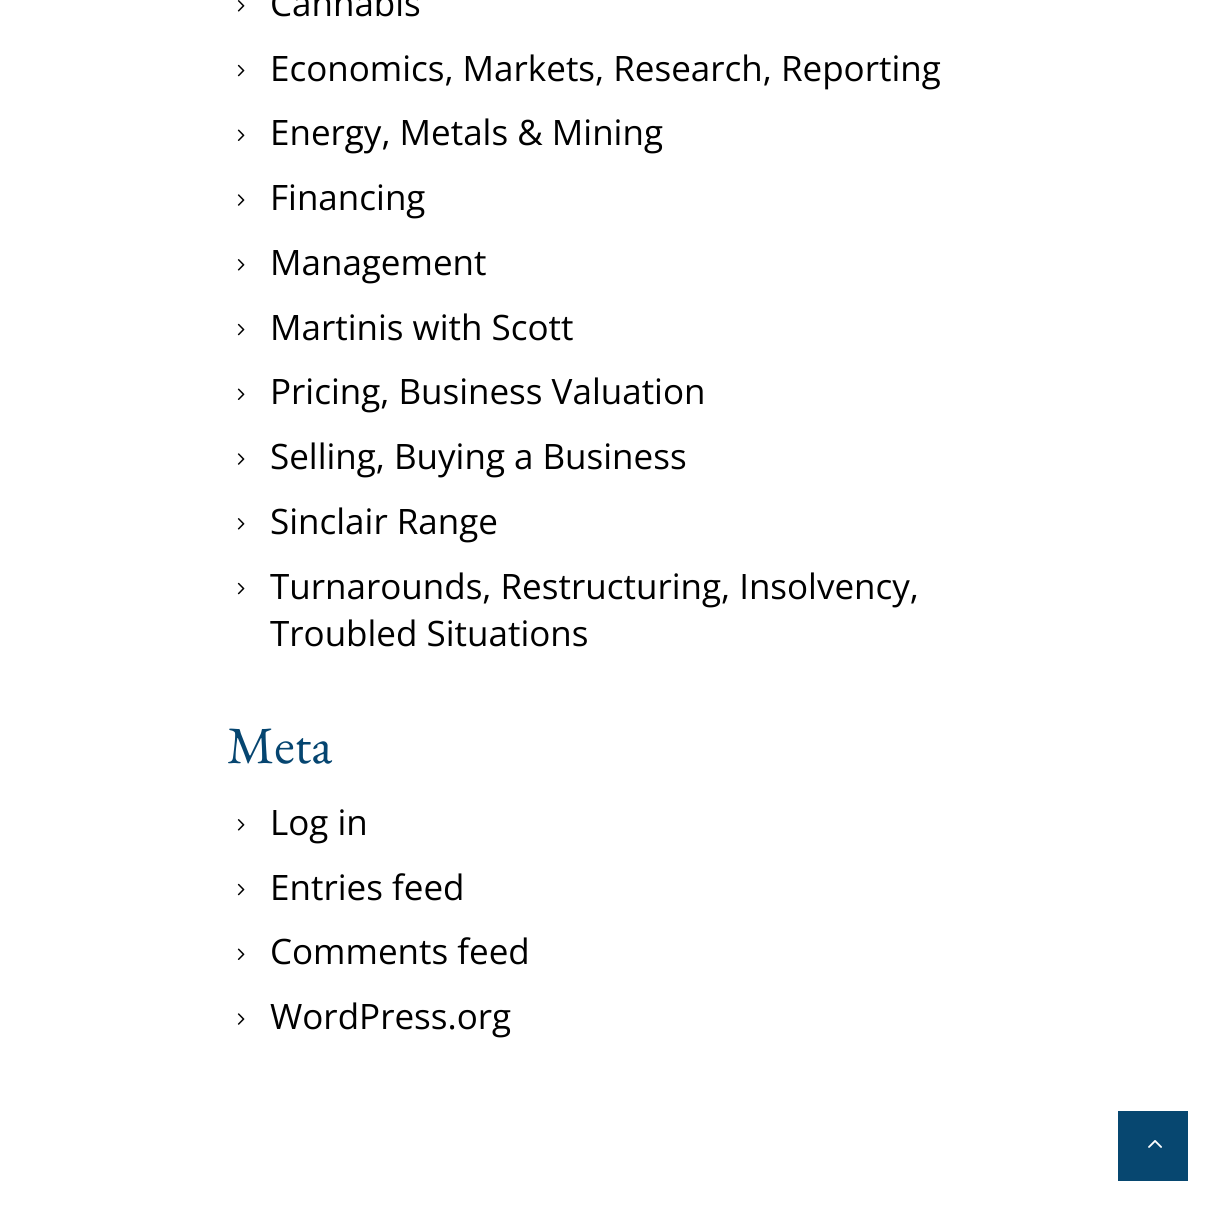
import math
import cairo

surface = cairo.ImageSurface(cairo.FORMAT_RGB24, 1223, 1215)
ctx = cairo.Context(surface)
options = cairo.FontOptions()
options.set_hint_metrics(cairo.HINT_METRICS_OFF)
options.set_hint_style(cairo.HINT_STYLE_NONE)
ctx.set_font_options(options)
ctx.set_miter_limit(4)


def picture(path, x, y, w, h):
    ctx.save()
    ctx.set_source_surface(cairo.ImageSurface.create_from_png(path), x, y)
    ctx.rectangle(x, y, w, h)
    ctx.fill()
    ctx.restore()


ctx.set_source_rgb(1, 1, 1)
ctx.paint()
picture("img1.png", 237, 0, 8, 12)
ctx.select_font_face("Open Sans")
ctx.set_font_size(35)
ctx.set_source_rgb(0, 0, 0)
ctx.move_to(270, 16)
ctx.show_text("Cannabis")
picture("img2.png", 237, 64, 8, 13)
ctx.move_to(270, 81)
ctx.show_text("Economics, Markets, Research, Reporting")
picture("img3.png", 237, 129, 8, 12)
ctx.move_to(270, 145)
ctx.show_text("Energy, Metals & Mining")
picture("img4.png", 237, 194, 8, 12)
ctx.move_to(270, 210)
ctx.show_text("Financing")
picture("img1.png", 237, 259, 8, 12)
ctx.move_to(270, 275)
ctx.show_text("Management")
picture("img2.png", 237, 323, 8, 13)
ctx.move_to(270, 340)
ctx.show_text("Martinis with Scott")
picture("img3.png", 237, 388, 8, 12)
ctx.move_to(270, 404)
ctx.show_text("Pricing, Business Valuation")
picture("img4.png", 237, 453, 8, 12)
ctx.move_to(270, 469)
ctx.show_text("Selling, Buying a Business")
picture("img1.png", 237, 518, 8, 12)
ctx.move_to(270, 534)
ctx.show_text("Sinclair Range")
picture("img2.png", 237, 582, 8, 13)
ctx.move_to(270, 599)
ctx.show_text("Turnarounds, Restructuring, Insolvency,")
ctx.move_to(270, 646)
ctx.show_text("Troubled Situations")
ctx.select_font_face("EB Garamond")
ctx.set_font_size(52.5)
ctx.set_source_rgb(0.02, 0.271, 0.439)
ctx.move_to(227, 763)
ctx.show_text("Meta")
picture("img1.png", 237, 819, 8, 12)
ctx.select_font_face("Open Sans")
ctx.set_font_size(35)
ctx.set_source_rgb(0, 0, 0)
ctx.move_to(270, 835)
ctx.show_text("Log in")
picture("img2.png", 237, 883, 8, 13)
ctx.move_to(270, 900)
ctx.show_text("Entries feed")
picture("img3.png", 237, 948, 8, 12)
ctx.move_to(270, 964)
ctx.show_text("Comments feed")
picture("img4.png", 237, 1013, 8, 12)
ctx.move_to(270, 1029)
ctx.show_text("WordPress.org")
ctx.set_source_rgb(0.031, 0.278, 0.439)
ctx.rectangle(1118, 1111, 70, 70)
ctx.fill()
picture("img5.png", 1148, 1140, 14, 8)
surface.write_to_png("page.png")
